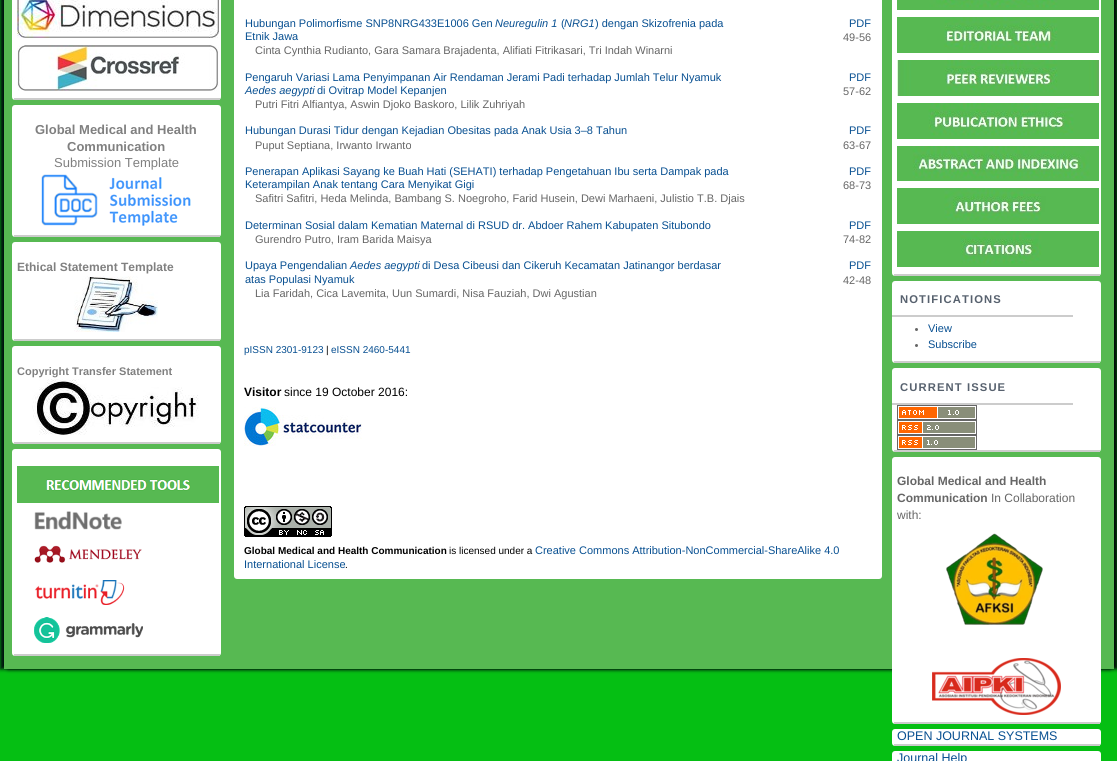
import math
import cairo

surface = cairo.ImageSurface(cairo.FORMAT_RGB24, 1117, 761)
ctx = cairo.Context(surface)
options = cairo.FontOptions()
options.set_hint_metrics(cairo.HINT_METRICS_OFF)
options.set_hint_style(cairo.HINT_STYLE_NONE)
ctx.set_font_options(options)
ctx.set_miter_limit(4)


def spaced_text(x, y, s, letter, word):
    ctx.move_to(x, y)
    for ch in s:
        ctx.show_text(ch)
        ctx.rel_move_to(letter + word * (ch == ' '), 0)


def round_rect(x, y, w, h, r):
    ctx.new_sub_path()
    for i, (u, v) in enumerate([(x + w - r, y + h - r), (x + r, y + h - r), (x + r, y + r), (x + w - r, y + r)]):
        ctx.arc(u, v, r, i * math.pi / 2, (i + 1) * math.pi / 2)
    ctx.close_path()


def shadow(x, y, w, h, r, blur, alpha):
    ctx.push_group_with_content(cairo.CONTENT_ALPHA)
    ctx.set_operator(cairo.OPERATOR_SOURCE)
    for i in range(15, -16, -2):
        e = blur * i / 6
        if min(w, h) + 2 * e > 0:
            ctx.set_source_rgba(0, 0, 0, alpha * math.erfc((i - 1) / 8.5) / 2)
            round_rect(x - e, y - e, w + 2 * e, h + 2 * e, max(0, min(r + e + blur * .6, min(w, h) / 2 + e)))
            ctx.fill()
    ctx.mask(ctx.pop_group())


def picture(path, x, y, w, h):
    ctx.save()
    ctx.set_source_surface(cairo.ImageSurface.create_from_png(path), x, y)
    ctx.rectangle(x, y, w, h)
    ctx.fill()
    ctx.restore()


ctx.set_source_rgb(0.02, 0.749, 0.075)
ctx.paint()
ctx.set_source_rgb(0, 0.051, 0.055)
shadow(0, -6, 1110, 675, 0, 2, 1)
ctx.set_source_rgb(0, 0.031, 0.035)
shadow(8, -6, 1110, 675, 0, 2, 1)
ctx.set_source_rgb(0.341, 0.725, 0.322)
ctx.rectangle(4, 0, 1110, 669)
ctx.fill()
ctx.set_source_rgb(1, 1, 1)
round_rect(234, -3, 648, 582, 3)
ctx.fill()
ctx.select_font_face("Liberation Sans")
ctx.set_font_size(11)
ctx.set_source_rgb(0.031, 0.31, 0.569)
ctx.move_to(245, 27)
ctx.show_text("Hubungan Polimorfisme SNP8NRG433E1006 Gen")
ctx.select_font_face("Liberation Sans", cairo.FONT_SLANT_ITALIC)
ctx.move_to(495, 27)
ctx.show_text("Neuregulin 1")
ctx.select_font_face("Liberation Sans")
ctx.move_to(561, 27)
ctx.show_text("(")
ctx.select_font_face("Liberation Sans", cairo.FONT_SLANT_ITALIC)
ctx.move_to(564, 27)
ctx.show_text("NRG1")
ctx.select_font_face("Liberation Sans")
ctx.move_to(595, 27)
ctx.show_text(") dengan Skizofrenia pada")
ctx.move_to(245, 40)
ctx.show_text("Etnik Jawa")
ctx.set_source_rgb(0.4, 0.4, 0.4)
ctx.move_to(255, 54)
ctx.show_text("Cinta Cynthia Rudianto, Gara Samara Brajadenta, Alifiati Fitrikasari, Tri Indah Winarni")
ctx.set_source_rgb(0.031, 0.31, 0.569)
ctx.move_to(849, 27)
ctx.show_text("PDF")
ctx.set_source_rgb(0.4, 0.4, 0.4)
ctx.move_to(843, 41)
ctx.show_text("49-56")
ctx.set_source_rgb(0.031, 0.31, 0.569)
ctx.move_to(245, 81)
ctx.show_text("Pengaruh Variasi Lama Penyimpanan Air Rendaman Jerami Padi terhadap Jumlah Telur Nyamuk")
ctx.select_font_face("Liberation Sans", cairo.FONT_SLANT_ITALIC)
ctx.move_to(245, 94)
ctx.show_text("Aedes aegypti")
ctx.select_font_face("Liberation Sans")
ctx.move_to(317, 94)
ctx.show_text("di Ovitrap Model Kepanjen")
ctx.set_source_rgb(0.4, 0.4, 0.4)
ctx.move_to(255, 108)
ctx.show_text("Putri Fitri Alfiantya, Aswin Djoko Baskoro, Lilik Zuhriyah")
ctx.set_source_rgb(0.031, 0.31, 0.569)
ctx.move_to(849, 81)
ctx.show_text("PDF")
ctx.set_source_rgb(0.4, 0.4, 0.4)
ctx.move_to(843, 95)
ctx.show_text("57-62")
ctx.set_source_rgb(0.031, 0.31, 0.569)
ctx.move_to(245, 134)
ctx.show_text("Hubungan Durasi Tidur dengan Kejadian Obesitas pada Anak Usia 3–8 Tahun")
ctx.set_source_rgb(0.4, 0.4, 0.4)
ctx.move_to(255, 149)
ctx.show_text("Puput Septiana, Irwanto Irwanto")
ctx.set_source_rgb(0.031, 0.31, 0.569)
ctx.move_to(849, 134)
ctx.show_text("PDF")
ctx.set_source_rgb(0.4, 0.4, 0.4)
ctx.move_to(843, 149)
ctx.show_text("63-67")
ctx.set_source_rgb(0.031, 0.31, 0.569)
ctx.move_to(245, 175)
ctx.show_text("Penerapan Aplikasi Sayang ke Buah Hati (SEHATI) terhadap Pengetahuan Ibu serta Dampak pada")
ctx.move_to(245, 188)
ctx.show_text("Keterampilan Anak tentang Cara Menyikat Gigi")
ctx.set_source_rgb(0.4, 0.4, 0.4)
ctx.move_to(255, 202)
ctx.show_text("Safitri Safitri, Heda Melinda, Bambang S. Noegroho, Farid Husein, Dewi Marhaeni, Julistio T.B. Djais")
ctx.set_source_rgb(0.031, 0.31, 0.569)
ctx.move_to(849, 175)
ctx.show_text("PDF")
ctx.set_source_rgb(0.4, 0.4, 0.4)
ctx.move_to(843, 189)
ctx.show_text("68-73")
ctx.set_source_rgb(0.031, 0.31, 0.569)
ctx.move_to(245, 229)
ctx.show_text("Determinan Sosial dalam Kematian Maternal di RSUD dr. Abdoer Rahem Kabupaten Situbondo")
ctx.set_source_rgb(0.4, 0.4, 0.4)
ctx.move_to(255, 243)
ctx.show_text("Gurendro Putro, Iram Barida Maisya")
ctx.set_source_rgb(0.031, 0.31, 0.569)
ctx.move_to(849, 229)
ctx.show_text("PDF")
ctx.set_source_rgb(0.4, 0.4, 0.4)
ctx.move_to(843, 243)
ctx.show_text("74-82")
ctx.set_source_rgb(0.031, 0.31, 0.569)
ctx.move_to(245, 269)
ctx.show_text("Upaya Pengendalian")
ctx.select_font_face("Liberation Sans", cairo.FONT_SLANT_ITALIC)
ctx.move_to(350, 269)
ctx.show_text("Aedes aegypti")
ctx.select_font_face("Liberation Sans")
ctx.move_to(422, 269)
ctx.show_text("di Desa Cibeusi dan Cikeruh Kecamatan Jatinangor berdasar")
ctx.move_to(245, 283)
ctx.show_text("atas Populasi Nyamuk")
ctx.set_source_rgb(0.4, 0.4, 0.4)
ctx.move_to(255, 297)
ctx.show_text("Lia Faridah, Cica Lavemita, Uun Sumardi, Nisa Fauziah, Dwi Agustian")
ctx.set_source_rgb(0.031, 0.31, 0.569)
ctx.move_to(849, 269)
ctx.show_text("PDF")
ctx.set_source_rgb(0.4, 0.4, 0.4)
ctx.move_to(843, 284)
ctx.show_text("42-48")
ctx.set_font_size(10)
ctx.set_source_rgb(0.031, 0.31, 0.569)
ctx.move_to(244, 353)
ctx.show_text("pISSN 2301-9123")
ctx.set_source_rgb(0, 0, 0)
ctx.move_to(326, 353)
ctx.show_text("|")
ctx.set_source_rgb(0.031, 0.31, 0.569)
ctx.move_to(331, 353)
ctx.show_text("eISSN 2460-5441")
ctx.select_font_face("Liberation Sans", cairo.FONT_SLANT_NORMAL, cairo.FONT_WEIGHT_BOLD)
ctx.set_font_size(12)
ctx.set_source_rgb(0, 0, 0)
ctx.move_to(244, 396)
ctx.show_text("Visitor")
ctx.select_font_face("Liberation Sans")
ctx.move_to(284, 396)
ctx.show_text("since 19 October 2016:")
picture("img1.png", 244, 407, 118, 39)
picture("img2.png", 244, 506, 88, 31)
ctx.select_font_face("Liberation Sans", cairo.FONT_SLANT_NORMAL, cairo.FONT_WEIGHT_BOLD)
ctx.set_font_size(10)
ctx.move_to(244, 554)
ctx.show_text("Global Medical and Health Communication")
ctx.select_font_face("Liberation Sans")
ctx.move_to(449, 554)
ctx.show_text("is licensed under a")
ctx.set_font_size(11)
ctx.set_source_rgb(0.031, 0.31, 0.569)
ctx.move_to(535, 554)
ctx.show_text("Creative Commons Attribution-NonCommercial-ShareAlike 4.0")
ctx.move_to(244, 568)
ctx.show_text("International License")
ctx.set_font_size(10)
ctx.set_source_rgb(0, 0, 0)
ctx.move_to(345, 568)
ctx.show_text(".")
ctx.set_source_rgb(1, 1, 1)
round_rect(12, -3, 209, 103, 3)
ctx.fill()
ctx.set_source_rgb(0.8, 0.8, 0.8)
ctx.rectangle(14, 98, 206, 2)
ctx.fill()
picture("img3.png", 17, 0, 202, 38)
picture("img4.png", 17, 45, 202, 46)
ctx.set_source_rgb(1, 1, 1)
round_rect(12, 105, 209, 132, 3)
ctx.fill()
ctx.set_source_rgb(0.8, 0.8, 0.8)
ctx.rectangle(14, 235, 206, 2)
ctx.fill()
ctx.select_font_face("Liberation Sans", cairo.FONT_SLANT_NORMAL, cairo.FONT_WEIGHT_BOLD)
ctx.set_font_size(13)
ctx.set_source_rgb(0.502, 0.502, 0.502)
ctx.move_to(35, 134)
ctx.show_text("Global Medical and Health")
ctx.move_to(67, 151)
ctx.show_text("Communication")
ctx.select_font_face("Liberation Sans")
ctx.move_to(54, 167)
ctx.show_text("Submission Template")
picture("img5.png", 41, 174, 150, 52)
ctx.set_source_rgb(1, 1, 1)
round_rect(12, 242, 209, 99, 3)
ctx.fill()
ctx.set_source_rgb(0.8, 0.8, 0.8)
ctx.rectangle(14, 339, 206, 2)
ctx.fill()
ctx.select_font_face("Liberation Sans", cairo.FONT_SLANT_NORMAL, cairo.FONT_WEIGHT_BOLD)
ctx.set_font_size(12)
ctx.set_source_rgb(0.502, 0.502, 0.502)
ctx.move_to(17, 271)
ctx.show_text("Ethical Statement Template")
picture("img6.png", 74, 276, 84, 56)
ctx.set_source_rgb(1, 1, 1)
round_rect(12, 346, 209, 98, 3)
ctx.fill()
ctx.set_source_rgb(0.8, 0.8, 0.8)
ctx.rectangle(14, 442, 206, 2)
ctx.fill()
ctx.set_font_size(11)
ctx.set_source_rgb(0.502, 0.502, 0.502)
ctx.move_to(17, 375)
ctx.show_text("Copyright Transfer Statement")
picture("img7.png", 32, 379, 167, 56)
ctx.set_source_rgb(1, 1, 1)
round_rect(12, 449, 209, 207, 3)
ctx.fill()
ctx.set_source_rgb(0.8, 0.8, 0.8)
ctx.rectangle(14, 654, 206, 2)
ctx.fill()
picture("img8.png", 17, 466, 202, 37)
picture("img9.png", 34, 511, 88, 19)
picture("img10.png", 34, 545, 108, 18)
picture("img11.png", 35, 580, 90, 25)
picture("img12.png", 34, 617, 109, 26)
ctx.set_source_rgb(1, 1, 1)
round_rect(892, -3, 209, 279, 3)
ctx.fill()
ctx.set_source_rgb(0.8, 0.8, 0.8)
ctx.rectangle(894, 274, 206, 2)
ctx.fill()
picture("img13.png", 897, 0, 202, 10)
picture("img14.png", 897, 17, 202, 36)
picture("img15.png", 897, 60, 202, 36)
picture("img16.png", 897, 103, 202, 36)
picture("img17.png", 897, 146, 202, 35)
picture("img18.png", 897, 188, 202, 36)
picture("img19.png", 897, 231, 202, 36)
ctx.set_source_rgb(1, 1, 1)
round_rect(892, 281, 209, 82, 3)
ctx.fill()
ctx.set_source_rgb(0.8, 0.8, 0.8)
ctx.rectangle(894, 361, 206, 2)
ctx.fill()
ctx.rectangle(892, 315, 181, 2)
ctx.fill()
ctx.set_font_size(11.25)
ctx.set_source_rgb(0.341, 0.38, 0.431)
spaced_text(900, 303, "NOTIFICATIONS", 1.1, 0)
ctx.set_source_rgb(0.4, 0.4, 0.4)
ctx.new_path()
ctx.arc(916.5, 329.5, 1.5, 0, 2 * math.pi)
ctx.fill()
ctx.select_font_face("Liberation Sans")
ctx.set_font_size(11)
ctx.set_source_rgb(0.031, 0.31, 0.569)
ctx.move_to(928, 332)
ctx.show_text("View")
ctx.set_source_rgb(0.4, 0.4, 0.4)
ctx.new_path()
ctx.arc(916.5, 345.5, 1.5, 0, 2 * math.pi)
ctx.fill()
ctx.set_source_rgb(0.031, 0.31, 0.569)
ctx.move_to(928, 348)
ctx.show_text("Subscribe")
ctx.set_source_rgb(1, 1, 1)
round_rect(892, 368, 209, 84, 3)
ctx.fill()
ctx.set_source_rgb(0.8, 0.8, 0.8)
ctx.rectangle(894, 450, 206, 2)
ctx.fill()
ctx.rectangle(892, 403, 181, 2)
ctx.fill()
ctx.select_font_face("Liberation Sans", cairo.FONT_SLANT_NORMAL, cairo.FONT_WEIGHT_BOLD)
ctx.set_font_size(11.25)
ctx.set_source_rgb(0.341, 0.38, 0.431)
spaced_text(900, 391, "CURRENT ISSUE", 1.1, 0)
picture("img20.png", 897, 405, 80, 15)
picture("img21.png", 897, 420, 80, 15)
picture("img22.png", 897, 435, 80, 15)
ctx.set_source_rgb(1, 1, 1)
round_rect(892, 457, 209, 267, 3)
ctx.fill()
ctx.set_source_rgb(0.8, 0.8, 0.8)
ctx.rectangle(894, 722, 206, 2)
ctx.fill()
ctx.set_font_size(12)
ctx.set_source_rgb(0.4, 0.4, 0.4)
ctx.move_to(897, 485)
ctx.show_text("Global Medical and Health")
ctx.move_to(897, 502)
ctx.show_text("Communication")
ctx.select_font_face("Liberation Sans")
ctx.move_to(991, 502)
ctx.show_text("In Collaboration")
ctx.move_to(897, 519)
ctx.show_text("with:")
picture("img23.png", 946, 533, 97, 92)
picture("img24.png", 932, 658, 129, 57)
ctx.set_source_rgb(1, 1, 1)
round_rect(892, 729, 209, 17, 3)
ctx.fill()
ctx.set_source_rgb(0.8, 0.8, 0.8)
ctx.rectangle(894, 744, 206, 2)
ctx.fill()
ctx.set_font_size(12.5)
ctx.set_source_rgb(0.031, 0.31, 0.569)
ctx.move_to(897, 740)
ctx.show_text("OPEN JOURNAL SYSTEMS")
ctx.set_source_rgb(1, 1, 1)
round_rect(892, 751, 209, 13, 3)
ctx.fill()
ctx.set_source_rgb(0.031, 0.31, 0.569)
ctx.move_to(897, 762)
ctx.show_text("Journal Help")
surface.write_to_png("page.png")
